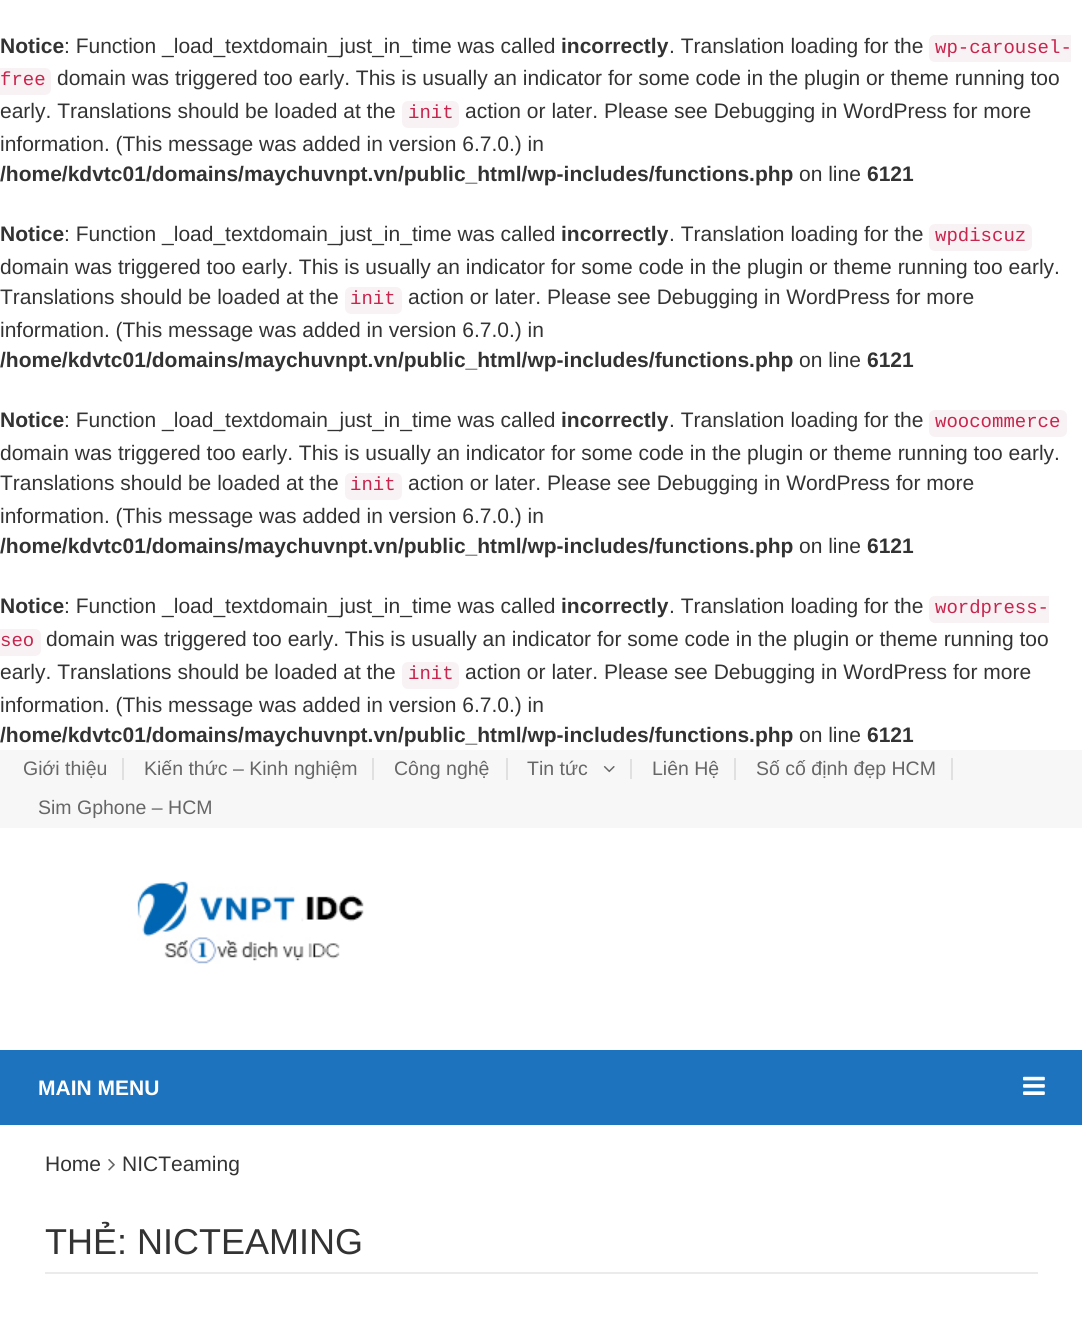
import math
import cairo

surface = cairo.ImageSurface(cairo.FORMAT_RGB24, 1082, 1330)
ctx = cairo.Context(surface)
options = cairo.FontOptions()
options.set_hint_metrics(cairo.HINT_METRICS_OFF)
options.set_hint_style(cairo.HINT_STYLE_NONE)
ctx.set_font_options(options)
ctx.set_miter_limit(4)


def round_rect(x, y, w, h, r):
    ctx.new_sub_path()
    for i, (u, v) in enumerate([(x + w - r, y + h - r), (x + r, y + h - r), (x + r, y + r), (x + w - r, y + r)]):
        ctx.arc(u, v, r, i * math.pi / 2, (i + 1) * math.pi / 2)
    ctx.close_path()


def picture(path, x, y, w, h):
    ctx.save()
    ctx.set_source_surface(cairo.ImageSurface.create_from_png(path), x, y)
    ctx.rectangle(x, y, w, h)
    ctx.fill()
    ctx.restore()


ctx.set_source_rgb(1, 1, 1)
ctx.paint()
ctx.select_font_face("Liberation Sans", cairo.FONT_SLANT_NORMAL, cairo.FONT_WEIGHT_BOLD)
ctx.set_font_size(21)
ctx.set_source_rgb(0.2, 0.2, 0.2)
ctx.move_to(0, 53)
ctx.show_text("Notice")
ctx.select_font_face("Liberation Sans")
ctx.move_to(64, 53)
ctx.show_text(": Function _load_textdomain_just_in_time was called")
ctx.select_font_face("Liberation Sans", cairo.FONT_SLANT_NORMAL, cairo.FONT_WEIGHT_BOLD)
ctx.move_to(561, 53)
ctx.show_text("incorrectly")
ctx.select_font_face("Liberation Sans")
ctx.move_to(669, 53)
ctx.show_text(". Translation loading for the")
ctx.set_source_rgb(0.976, 0.949, 0.957)
ctx.new_path()
ctx.move_to(935, 35)
ctx.line_to(1071, 35)
ctx.line_to(1071, 62)
ctx.line_to(935, 62)
ctx.curve_to(931.5, 62, 929, 59.5, 929, 56)
ctx.line_to(929, 41)
ctx.curve_to(929, 37.5, 931.5, 35, 935, 35)
ctx.close_path()
ctx.fill()
ctx.select_font_face("Liberation Mono")
ctx.set_font_size(19)
ctx.set_source_rgb(0.78, 0.145, 0.306)
ctx.move_to(935, 53)
ctx.show_text("wp-carousel-")
ctx.set_source_rgb(0.976, 0.949, 0.957)
ctx.new_path()
ctx.move_to(0, 68)
ctx.line_to(45, 68)
ctx.curve_to(48.5, 68, 51, 70.5, 51, 74)
ctx.line_to(51, 89)
ctx.curve_to(51, 92.5, 48.5, 95, 45, 95)
ctx.line_to(0, 95)
ctx.close_path()
ctx.fill()
ctx.set_source_rgb(0.78, 0.145, 0.306)
ctx.move_to(0, 85)
ctx.show_text("free")
ctx.select_font_face("Liberation Sans")
ctx.set_font_size(21)
ctx.set_source_rgb(0.2, 0.2, 0.2)
ctx.move_to(57, 85)
ctx.show_text("domain was triggered too early. This is usually an indicator for some code in the plugin or theme running too")
ctx.move_to(0, 118)
ctx.show_text("early. Translations should be loaded at the")
ctx.set_source_rgb(0.976, 0.949, 0.957)
round_rect(402, 101, 57, 27, 6)
ctx.fill()
ctx.select_font_face("Liberation Mono")
ctx.set_font_size(19)
ctx.set_source_rgb(0.78, 0.145, 0.306)
ctx.move_to(408, 118)
ctx.show_text("init")
ctx.select_font_face("Liberation Sans")
ctx.set_font_size(21)
ctx.set_source_rgb(0.2, 0.2, 0.2)
ctx.move_to(465, 118)
ctx.show_text("action or later. Please see Debugging in WordPress for more")
ctx.move_to(0, 151)
ctx.show_text("information. (This message was added in version 6.7.0.) in")
ctx.select_font_face("Liberation Sans", cairo.FONT_SLANT_NORMAL, cairo.FONT_WEIGHT_BOLD)
ctx.move_to(0, 181)
ctx.show_text("/home/kdvtc01/domains/maychuvnpt.vn/public_html/wp-includes/functions.php")
ctx.select_font_face("Liberation Sans")
ctx.move_to(799, 181)
ctx.show_text("on line")
ctx.select_font_face("Liberation Sans", cairo.FONT_SLANT_NORMAL, cairo.FONT_WEIGHT_BOLD)
ctx.move_to(867, 181)
ctx.show_text("6121")
ctx.move_to(0, 241)
ctx.show_text("Notice")
ctx.select_font_face("Liberation Sans")
ctx.move_to(64, 241)
ctx.show_text(": Function _load_textdomain_just_in_time was called")
ctx.select_font_face("Liberation Sans", cairo.FONT_SLANT_NORMAL, cairo.FONT_WEIGHT_BOLD)
ctx.move_to(561, 241)
ctx.show_text("incorrectly")
ctx.select_font_face("Liberation Sans")
ctx.move_to(669, 241)
ctx.show_text(". Translation loading for the")
ctx.set_source_rgb(0.976, 0.949, 0.957)
round_rect(929, 224, 103, 27, 6)
ctx.fill()
ctx.select_font_face("Liberation Mono")
ctx.set_font_size(19)
ctx.set_source_rgb(0.78, 0.145, 0.306)
ctx.move_to(935, 241)
ctx.show_text("wpdiscuz")
ctx.select_font_face("Liberation Sans")
ctx.set_font_size(21)
ctx.set_source_rgb(0.2, 0.2, 0.2)
ctx.move_to(0, 274)
ctx.show_text("domain was triggered too early. This is usually an indicator for some code in the plugin or theme running too early.")
ctx.move_to(0, 304)
ctx.show_text("Translations should be loaded at the")
ctx.set_source_rgb(0.976, 0.949, 0.957)
round_rect(345, 287, 57, 27, 6)
ctx.fill()
ctx.select_font_face("Liberation Mono")
ctx.set_font_size(19)
ctx.set_source_rgb(0.78, 0.145, 0.306)
ctx.move_to(350, 304)
ctx.show_text("init")
ctx.select_font_face("Liberation Sans")
ctx.set_font_size(21)
ctx.set_source_rgb(0.2, 0.2, 0.2)
ctx.move_to(408, 304)
ctx.show_text("action or later. Please see Debugging in WordPress for more")
ctx.move_to(0, 337)
ctx.show_text("information. (This message was added in version 6.7.0.) in")
ctx.select_font_face("Liberation Sans", cairo.FONT_SLANT_NORMAL, cairo.FONT_WEIGHT_BOLD)
ctx.move_to(0, 367)
ctx.show_text("/home/kdvtc01/domains/maychuvnpt.vn/public_html/wp-includes/functions.php")
ctx.select_font_face("Liberation Sans")
ctx.move_to(799, 367)
ctx.show_text("on line")
ctx.select_font_face("Liberation Sans", cairo.FONT_SLANT_NORMAL, cairo.FONT_WEIGHT_BOLD)
ctx.move_to(867, 367)
ctx.show_text("6121")
ctx.move_to(0, 427)
ctx.show_text("Notice")
ctx.select_font_face("Liberation Sans")
ctx.move_to(64, 427)
ctx.show_text(": Function _load_textdomain_just_in_time was called")
ctx.select_font_face("Liberation Sans", cairo.FONT_SLANT_NORMAL, cairo.FONT_WEIGHT_BOLD)
ctx.move_to(561, 427)
ctx.show_text("incorrectly")
ctx.select_font_face("Liberation Sans")
ctx.move_to(669, 427)
ctx.show_text(". Translation loading for the")
ctx.set_source_rgb(0.976, 0.949, 0.957)
round_rect(929, 410, 138, 27, 6)
ctx.fill()
ctx.select_font_face("Liberation Mono")
ctx.set_font_size(19)
ctx.set_source_rgb(0.78, 0.145, 0.306)
ctx.move_to(935, 427)
ctx.show_text("woocommerce")
ctx.select_font_face("Liberation Sans")
ctx.set_font_size(21)
ctx.set_source_rgb(0.2, 0.2, 0.2)
ctx.move_to(0, 460)
ctx.show_text("domain was triggered too early. This is usually an indicator for some code in the plugin or theme running too early.")
ctx.move_to(0, 490)
ctx.show_text("Translations should be loaded at the")
ctx.set_source_rgb(0.976, 0.949, 0.957)
round_rect(345, 473, 57, 27, 6)
ctx.fill()
ctx.select_font_face("Liberation Mono")
ctx.set_font_size(19)
ctx.set_source_rgb(0.78, 0.145, 0.306)
ctx.move_to(350, 490)
ctx.show_text("init")
ctx.select_font_face("Liberation Sans")
ctx.set_font_size(21)
ctx.set_source_rgb(0.2, 0.2, 0.2)
ctx.move_to(408, 490)
ctx.show_text("action or later. Please see Debugging in WordPress for more")
ctx.move_to(0, 523)
ctx.show_text("information. (This message was added in version 6.7.0.) in")
ctx.select_font_face("Liberation Sans", cairo.FONT_SLANT_NORMAL, cairo.FONT_WEIGHT_BOLD)
ctx.move_to(0, 553)
ctx.show_text("/home/kdvtc01/domains/maychuvnpt.vn/public_html/wp-includes/functions.php")
ctx.select_font_face("Liberation Sans")
ctx.move_to(799, 553)
ctx.show_text("on line")
ctx.select_font_face("Liberation Sans", cairo.FONT_SLANT_NORMAL, cairo.FONT_WEIGHT_BOLD)
ctx.move_to(867, 553)
ctx.show_text("6121")
ctx.move_to(0, 613)
ctx.show_text("Notice")
ctx.select_font_face("Liberation Sans")
ctx.move_to(64, 613)
ctx.show_text(": Function _load_textdomain_just_in_time was called")
ctx.select_font_face("Liberation Sans", cairo.FONT_SLANT_NORMAL, cairo.FONT_WEIGHT_BOLD)
ctx.move_to(561, 613)
ctx.show_text("incorrectly")
ctx.select_font_face("Liberation Sans")
ctx.move_to(669, 613)
ctx.show_text(". Translation loading for the")
ctx.set_source_rgb(0.976, 0.949, 0.957)
ctx.new_path()
ctx.move_to(935, 596)
ctx.line_to(1049, 596)
ctx.line_to(1049, 623)
ctx.line_to(935, 623)
ctx.curve_to(931.5, 623, 929, 620.5, 929, 617)
ctx.line_to(929, 602)
ctx.curve_to(929, 598.5, 931.5, 596, 935, 596)
ctx.close_path()
ctx.fill()
ctx.select_font_face("Liberation Mono")
ctx.set_font_size(19)
ctx.set_source_rgb(0.78, 0.145, 0.306)
ctx.move_to(935, 613)
ctx.show_text("wordpress-")
ctx.set_source_rgb(0.976, 0.949, 0.957)
ctx.new_path()
ctx.move_to(0, 629)
ctx.line_to(35, 629)
ctx.curve_to(38.5, 629, 41, 631.5, 41, 635)
ctx.line_to(41, 650)
ctx.curve_to(41, 653.5, 38.5, 656, 35, 656)
ctx.line_to(0, 656)
ctx.close_path()
ctx.fill()
ctx.set_source_rgb(0.78, 0.145, 0.306)
ctx.move_to(0, 646)
ctx.show_text("seo")
ctx.select_font_face("Liberation Sans")
ctx.set_font_size(21)
ctx.set_source_rgb(0.2, 0.2, 0.2)
ctx.move_to(46, 646)
ctx.show_text("domain was triggered too early. This is usually an indicator for some code in the plugin or theme running too")
ctx.move_to(0, 679)
ctx.show_text("early. Translations should be loaded at the")
ctx.set_source_rgb(0.976, 0.949, 0.957)
round_rect(402, 662, 57, 27, 6)
ctx.fill()
ctx.select_font_face("Liberation Mono")
ctx.set_font_size(19)
ctx.set_source_rgb(0.78, 0.145, 0.306)
ctx.move_to(408, 679)
ctx.show_text("init")
ctx.select_font_face("Liberation Sans")
ctx.set_font_size(21)
ctx.set_source_rgb(0.2, 0.2, 0.2)
ctx.move_to(465, 679)
ctx.show_text("action or later. Please see Debugging in WordPress for more")
ctx.move_to(0, 712)
ctx.show_text("information. (This message was added in version 6.7.0.) in")
ctx.select_font_face("Liberation Sans", cairo.FONT_SLANT_NORMAL, cairo.FONT_WEIGHT_BOLD)
ctx.move_to(0, 742)
ctx.show_text("/home/kdvtc01/domains/maychuvnpt.vn/public_html/wp-includes/functions.php")
ctx.select_font_face("Liberation Sans")
ctx.move_to(799, 742)
ctx.show_text("on line")
ctx.select_font_face("Liberation Sans", cairo.FONT_SLANT_NORMAL, cairo.FONT_WEIGHT_BOLD)
ctx.move_to(867, 742)
ctx.show_text("6121")
ctx.set_source_rgb(0.965, 0.965, 0.965)
ctx.rectangle(0, 750, 1082, 78)
ctx.fill()
ctx.select_font_face("Liberation Sans")
ctx.set_font_size(19.5)
ctx.set_source_rgb(0.4, 0.4, 0.4)
ctx.move_to(23, 775)
ctx.show_text("Giới thiệu")
ctx.set_source_rgb(0.878, 0.878, 0.878)
ctx.rectangle(122, 758, 2, 22)
ctx.fill()
ctx.set_source_rgb(0.4, 0.4, 0.4)
ctx.move_to(144, 775)
ctx.show_text("Kiến thức – Kinh nghiệm")
ctx.set_source_rgb(0.878, 0.878, 0.878)
ctx.rectangle(372, 758, 2, 22)
ctx.fill()
ctx.set_source_rgb(0.4, 0.4, 0.4)
ctx.move_to(394, 775)
ctx.show_text("Công nghệ")
ctx.set_source_rgb(0.878, 0.878, 0.878)
ctx.rectangle(506, 758, 2, 22)
ctx.fill()
ctx.set_source_rgb(0.4, 0.4, 0.4)
ctx.move_to(527, 775)
ctx.show_text("Tin tức")
ctx.set_source_rgb(0.878, 0.878, 0.878)
ctx.rectangle(630, 759, 2, 20)
ctx.fill()
picture("img1.png", 603, 766, 12, 7)
ctx.set_source_rgb(0.4, 0.4, 0.4)
ctx.move_to(652, 775)
ctx.show_text("Liên Hệ")
ctx.set_source_rgb(0.878, 0.878, 0.878)
ctx.rectangle(734, 758, 2, 22)
ctx.fill()
ctx.set_source_rgb(0.4, 0.4, 0.4)
ctx.move_to(756, 775)
ctx.show_text("Số cố định đẹp HCM")
ctx.set_source_rgb(0.878, 0.878, 0.878)
ctx.rectangle(951, 758, 2, 22)
ctx.fill()
ctx.set_source_rgb(0.4, 0.4, 0.4)
ctx.move_to(38, 814)
ctx.show_text("Sim Gphone – HCM")
picture("img2.png", 137, 881, 227, 83)
ctx.set_source_rgb(0.118, 0.451, 0.745)
ctx.rectangle(0, 1050, 1082, 75)
ctx.fill()
ctx.select_font_face("Liberation Sans", cairo.FONT_SLANT_NORMAL, cairo.FONT_WEIGHT_BOLD)
ctx.set_font_size(21)
ctx.set_source_rgb(1, 1, 1)
ctx.move_to(38, 1095)
ctx.show_text("MAIN MENU")
picture("img3.png", 1023, 1076, 22, 19)
ctx.select_font_face("Liberation Sans")
ctx.set_source_rgb(0.2, 0.2, 0.2)
ctx.move_to(45, 1171)
ctx.show_text("Home")
picture("img4.png", 108, 1159, 7, 12)
ctx.move_to(122, 1171)
ctx.show_text("NICTeaming")
ctx.set_source_rgb(0.918, 0.918, 0.918)
ctx.rectangle(45, 1272, 993, 2)
ctx.fill()
ctx.set_font_size(36)
ctx.set_source_rgb(0.2, 0.2, 0.2)
ctx.move_to(45, 1254)
ctx.show_text("THẺ: NICTEAMING")
surface.write_to_png("page.png")
